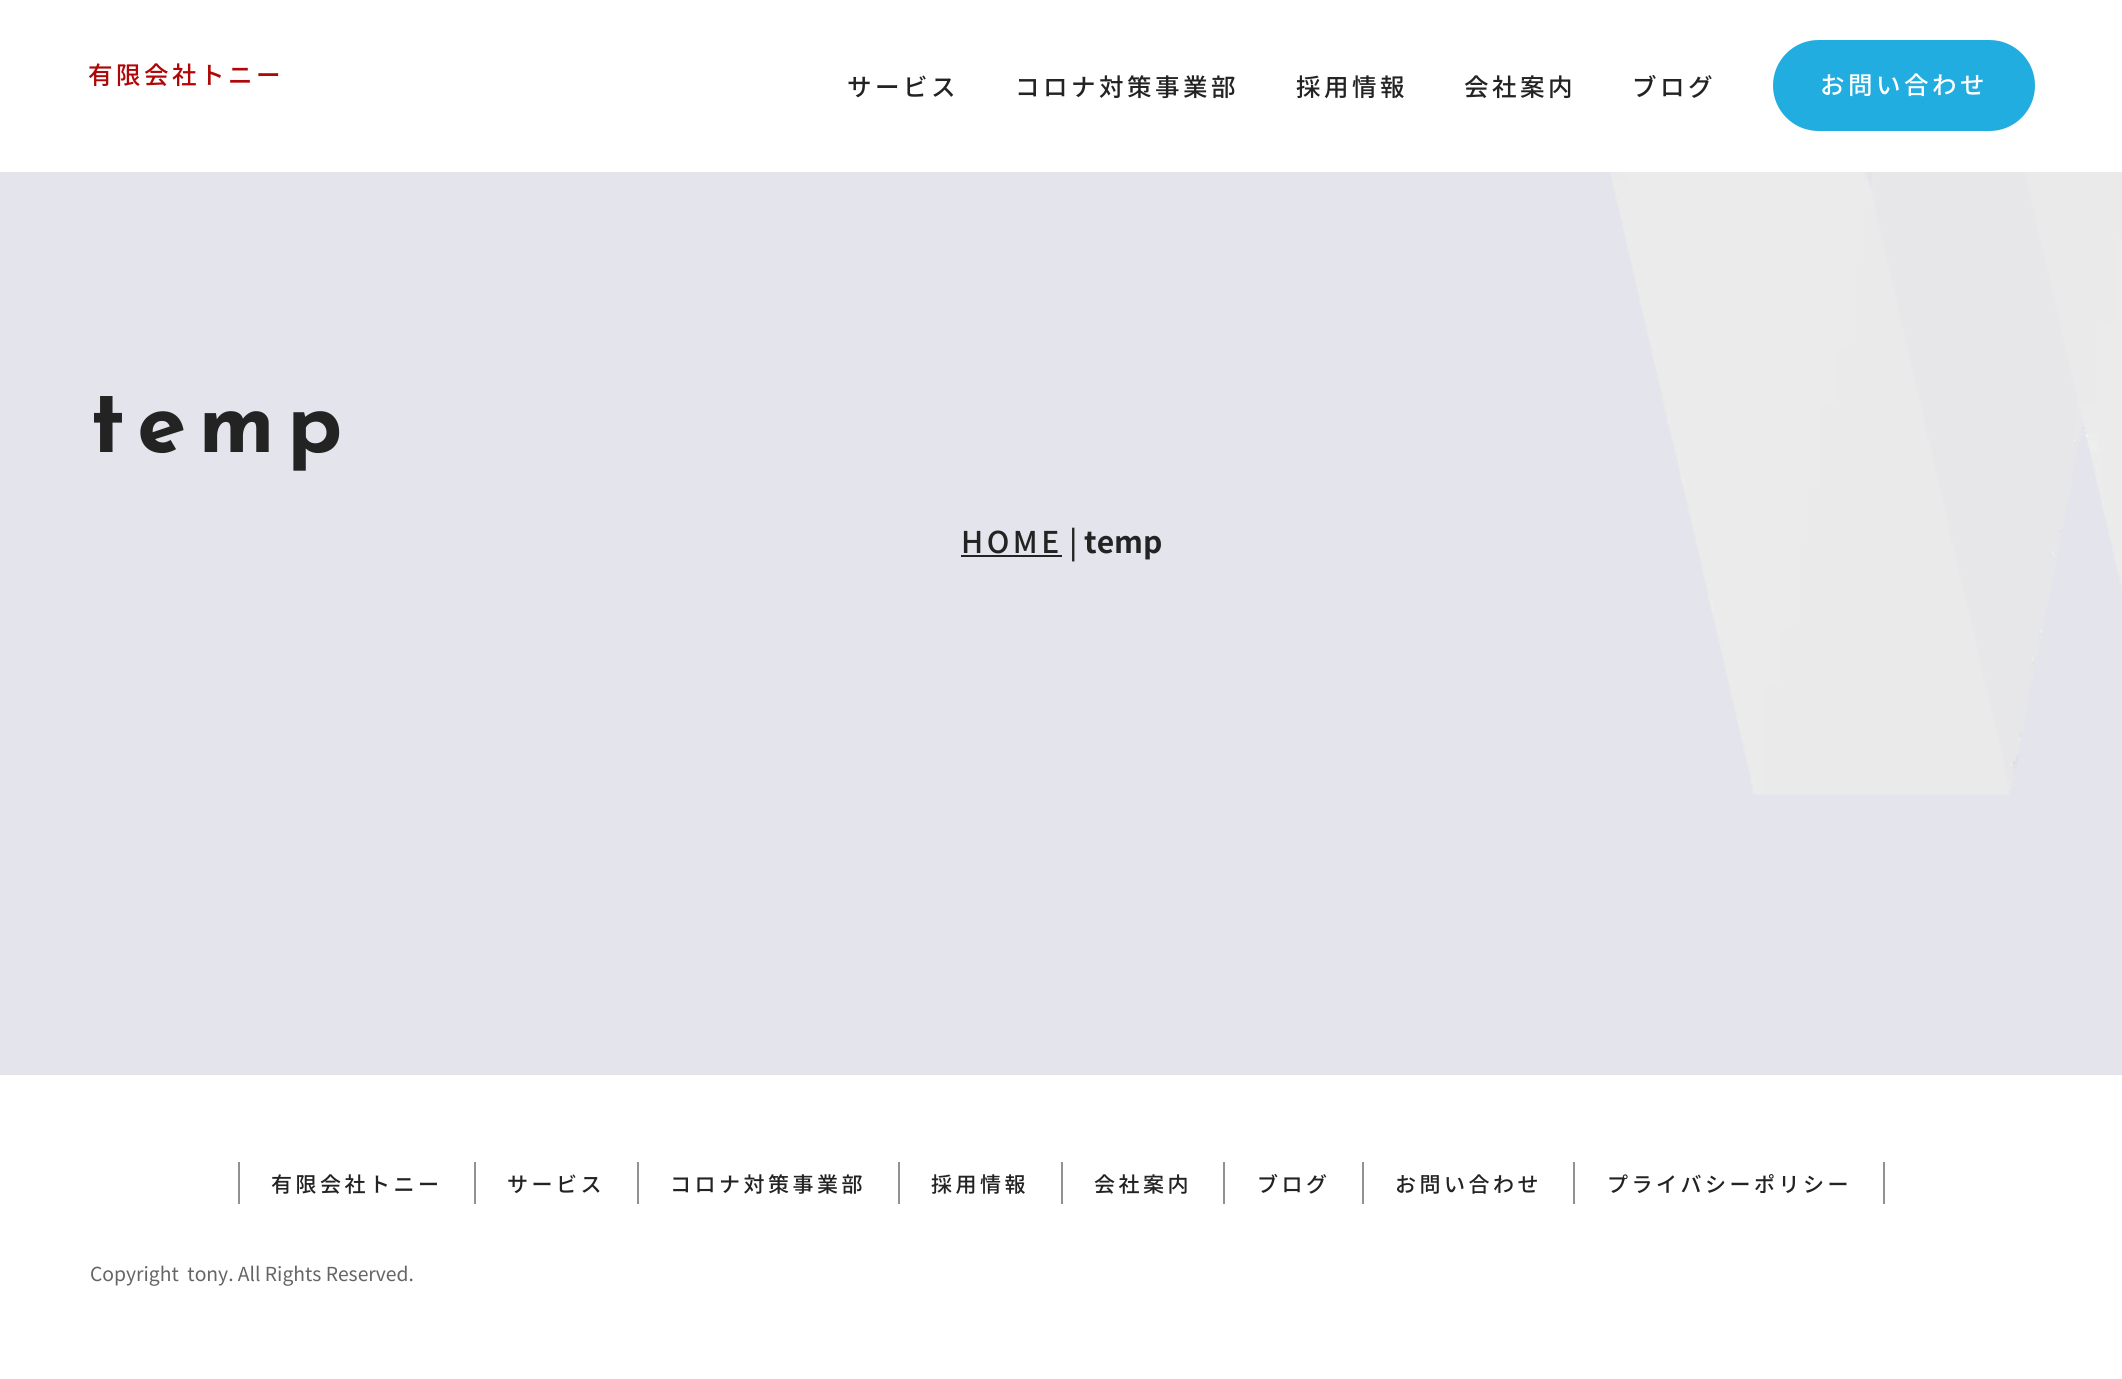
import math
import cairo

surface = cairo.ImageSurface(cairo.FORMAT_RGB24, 2122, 1379)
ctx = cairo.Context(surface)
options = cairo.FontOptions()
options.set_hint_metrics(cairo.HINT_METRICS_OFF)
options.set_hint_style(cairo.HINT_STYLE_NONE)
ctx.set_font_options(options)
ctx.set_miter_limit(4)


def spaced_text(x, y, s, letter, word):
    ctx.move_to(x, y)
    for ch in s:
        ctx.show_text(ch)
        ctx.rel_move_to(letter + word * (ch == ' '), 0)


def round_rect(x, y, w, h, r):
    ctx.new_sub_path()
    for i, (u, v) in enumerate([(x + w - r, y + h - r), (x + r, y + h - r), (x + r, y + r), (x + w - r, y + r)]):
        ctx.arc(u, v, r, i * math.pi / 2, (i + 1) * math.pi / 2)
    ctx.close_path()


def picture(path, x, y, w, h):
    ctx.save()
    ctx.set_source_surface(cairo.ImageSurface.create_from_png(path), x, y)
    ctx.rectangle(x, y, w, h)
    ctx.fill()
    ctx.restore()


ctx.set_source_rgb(0.89, 0.894, 0.922)
ctx.paint()
ctx.set_source_rgb(1, 1, 1)
ctx.rectangle(0, 0, 2122, 172)
ctx.fill()
ctx.select_font_face("Noto Sans JP Medium")
ctx.set_font_size(24.5)
ctx.set_source_rgb(0.686, 0.031, 0.031)
spaced_text(88, 84, "有限会社トニー", 3.5, 0)
ctx.set_source_rgb(0.137, 0.137, 0.137)
spaced_text(847, 96, "サービス", 3.5, 0)
spaced_text(1015, 96, "コロナ対策事業部", 3.5, 0)
spaced_text(1296, 96, "採用情報", 3.5, 0)
spaced_text(1464, 96, "会社案内", 3.5, 0)
spaced_text(1632, 96, "ブログ", 3.5, 0)
ctx.set_source_rgb(0.129, 0.678, 0.878)
round_rect(1775, 42, 258, 87, 43.5)
ctx.fill_preserve()
ctx.set_line_width(4)
ctx.stroke()
ctx.set_source_rgb(1, 1, 1)
spaced_text(1820, 94, "お問い合わせ", 3.5, 0)
picture("img1.png", 1610, 172, 512, 623)
ctx.select_font_face("Josefin Sans", cairo.FONT_SLANT_NORMAL, cairo.FONT_WEIGHT_BOLD)
ctx.set_font_size(89)
ctx.set_source_rgb(0.137, 0.137, 0.137)
spaced_text(90, 452, "temp", 12, 0)
ctx.select_font_face("Noto Sans JP Medium")
ctx.set_font_size(30)
spaced_text(961, 553, "HOME", 3.5, 0)
ctx.rectangle(961, 555, 101, 2)
ctx.fill()
ctx.move_to(1069, 553)
ctx.show_text("|")
ctx.select_font_face("Noto Sans JP", cairo.FONT_SLANT_NORMAL, cairo.FONT_WEIGHT_BOLD)
ctx.move_to(1084, 553)
ctx.show_text("temp")
ctx.set_source_rgb(1, 1, 1)
ctx.rectangle(0, 1075, 2122, 304)
ctx.fill()
ctx.set_source_rgb(0.569, 0.569, 0.569)
ctx.rectangle(474, 1162, 2, 42)
ctx.fill()
ctx.rectangle(238, 1162, 2, 42)
ctx.fill()
ctx.select_font_face("Noto Sans JP Medium")
ctx.set_font_size(21)
ctx.set_source_rgb(0.137, 0.137, 0.137)
spaced_text(271, 1192, "有限会社トニー", 3.5, 0)
ctx.set_source_rgb(0.569, 0.569, 0.569)
ctx.rectangle(637, 1162, 2, 42)
ctx.fill()
ctx.set_source_rgb(0.137, 0.137, 0.137)
spaced_text(507, 1192, "サービス", 3.5, 0)
ctx.set_source_rgb(0.569, 0.569, 0.569)
ctx.rectangle(898, 1162, 2, 42)
ctx.fill()
ctx.set_source_rgb(0.137, 0.137, 0.137)
spaced_text(670, 1192, "コロナ対策事業部", 3.5, 0)
ctx.set_source_rgb(0.569, 0.569, 0.569)
ctx.rectangle(1061, 1162, 2, 42)
ctx.fill()
ctx.set_source_rgb(0.137, 0.137, 0.137)
spaced_text(931, 1192, "採用情報", 3.5, 0)
ctx.set_source_rgb(0.569, 0.569, 0.569)
ctx.rectangle(1223, 1162, 2, 42)
ctx.fill()
ctx.set_source_rgb(0.137, 0.137, 0.137)
spaced_text(1094, 1192, "会社案内", 3.5, 0)
ctx.set_source_rgb(0.569, 0.569, 0.569)
ctx.rectangle(1362, 1162, 2, 42)
ctx.fill()
ctx.set_source_rgb(0.137, 0.137, 0.137)
spaced_text(1257, 1192, "ブログ", 3.5, 0)
ctx.set_source_rgb(0.569, 0.569, 0.569)
ctx.rectangle(1573, 1162, 2, 42)
ctx.fill()
ctx.set_source_rgb(0.137, 0.137, 0.137)
spaced_text(1395, 1192, "お問い合わせ", 3.5, 0)
ctx.set_source_rgb(0.569, 0.569, 0.569)
ctx.rectangle(1883, 1162, 2, 42)
ctx.fill()
ctx.set_source_rgb(0.137, 0.137, 0.137)
spaced_text(1607, 1192, "プライバシーポリシー", 3.5, 0)
ctx.select_font_face("Noto Sans JP")
ctx.set_font_size(19.3)
ctx.set_source_rgb(0.396, 0.396, 0.396)
ctx.move_to(90, 1281)
ctx.show_text("Copyright  tony. All Rights Reserved.")
surface.write_to_png("page.png")
